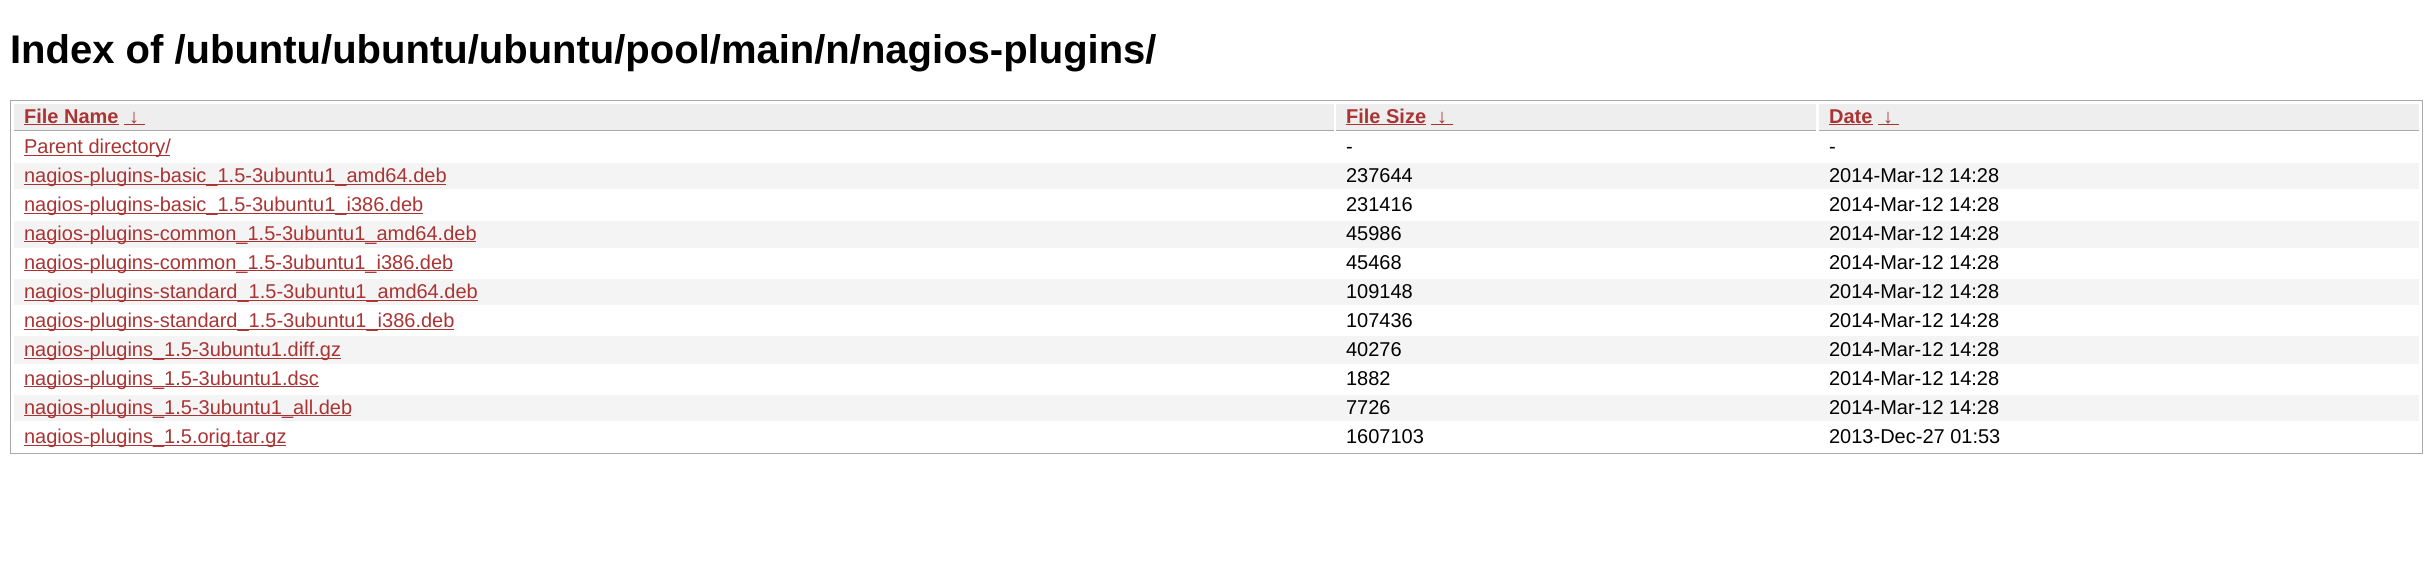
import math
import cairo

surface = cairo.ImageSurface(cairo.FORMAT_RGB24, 2432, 569)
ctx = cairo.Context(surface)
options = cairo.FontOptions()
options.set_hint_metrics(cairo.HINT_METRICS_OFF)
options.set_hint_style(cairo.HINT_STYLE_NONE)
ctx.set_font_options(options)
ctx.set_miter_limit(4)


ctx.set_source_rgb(1, 1, 1)
ctx.paint()
ctx.select_font_face("Liberation Sans", cairo.FONT_SLANT_NORMAL, cairo.FONT_WEIGHT_BOLD)
ctx.set_font_size(40)
ctx.set_source_rgb(0, 0, 0)
ctx.move_to(10, 63)
ctx.show_text("Index of /ubuntu/ubuntu/ubuntu/pool/main/n/nagios-plugins/")
ctx.rectangle(10.5, 100.5, 2412, 353)
ctx.set_source_rgb(0.667, 0.667, 0.667)
ctx.set_line_width(1)
ctx.stroke()
ctx.set_source_rgb(0.933, 0.933, 0.933)
ctx.rectangle(14, 104, 1320, 26)
ctx.fill()
ctx.set_source_rgb(0.667, 0.667, 0.667)
ctx.rectangle(14, 130, 1320, 1)
ctx.fill()
ctx.set_font_size(20)
ctx.set_source_rgb(0.667, 0.2, 0.2)
ctx.move_to(24, 123)
ctx.show_text("File Name")
ctx.rectangle(24, 124, 95, 1)
ctx.fill()
ctx.move_to(129, 123)
ctx.show_text("↓")
ctx.rectangle(124, 124, 21, 1)
ctx.fill()
ctx.set_source_rgb(0.933, 0.933, 0.933)
ctx.rectangle(1336, 104, 480, 26)
ctx.fill()
ctx.set_source_rgb(0.667, 0.667, 0.667)
ctx.rectangle(1336, 130, 480, 1)
ctx.fill()
ctx.set_source_rgb(0.667, 0.2, 0.2)
ctx.move_to(1346, 123)
ctx.show_text("File Size")
ctx.rectangle(1346, 124, 80, 1)
ctx.fill()
ctx.move_to(1437, 123)
ctx.show_text("↓")
ctx.rectangle(1431, 124, 22, 1)
ctx.fill()
ctx.set_source_rgb(0.933, 0.933, 0.933)
ctx.rectangle(1819, 104, 600, 26)
ctx.fill()
ctx.set_source_rgb(0.667, 0.667, 0.667)
ctx.rectangle(1819, 130, 600, 1)
ctx.fill()
ctx.set_source_rgb(0.667, 0.2, 0.2)
ctx.move_to(1829, 123)
ctx.show_text("Date")
ctx.rectangle(1829, 124, 44, 1)
ctx.fill()
ctx.move_to(1883, 123)
ctx.show_text("↓")
ctx.rectangle(1878, 124, 21, 1)
ctx.fill()
ctx.rectangle(24, 155, 146, 1)
ctx.fill()
ctx.select_font_face("Liberation Sans")
ctx.move_to(24, 153)
ctx.show_text("Parent directory/")
ctx.set_source_rgb(0, 0, 0)
ctx.move_to(1346, 153)
ctx.show_text("-")
ctx.move_to(1829, 153)
ctx.show_text("-")
ctx.set_source_rgb(0.957, 0.957, 0.957)
ctx.rectangle(14, 163, 2405, 26)
ctx.fill()
ctx.set_source_rgb(0.667, 0.2, 0.2)
ctx.rectangle(24, 184, 422, 1)
ctx.fill()
ctx.move_to(24, 182)
ctx.show_text("nagios-plugins-basic_1.5-3ubuntu1_amd64.deb")
ctx.set_source_rgb(0, 0, 0)
ctx.move_to(1346, 182)
ctx.show_text("237644")
ctx.move_to(1829, 182)
ctx.show_text("2014-Mar-12 14:28")
ctx.set_source_rgb(0.667, 0.2, 0.2)
ctx.rectangle(24, 213, 399, 1)
ctx.fill()
ctx.move_to(24, 211)
ctx.show_text("nagios-plugins-basic_1.5-3ubuntu1_i386.deb")
ctx.set_source_rgb(0, 0, 0)
ctx.move_to(1346, 211)
ctx.show_text("231416")
ctx.move_to(1829, 211)
ctx.show_text("2014-Mar-12 14:28")
ctx.set_source_rgb(0.957, 0.957, 0.957)
ctx.rectangle(14, 221, 2405, 27)
ctx.fill()
ctx.set_source_rgb(0.667, 0.2, 0.2)
ctx.rectangle(24, 241, 452, 1)
ctx.fill()
ctx.move_to(24, 240)
ctx.show_text("nagios-plugins-common_1.5-3ubuntu1_amd64.deb")
ctx.set_source_rgb(0, 0, 0)
ctx.move_to(1346, 240)
ctx.show_text("45986")
ctx.move_to(1829, 240)
ctx.show_text("2014-Mar-12 14:28")
ctx.set_source_rgb(0.667, 0.2, 0.2)
ctx.rectangle(24, 270, 429, 1)
ctx.fill()
ctx.move_to(24, 269)
ctx.show_text("nagios-plugins-common_1.5-3ubuntu1_i386.deb")
ctx.set_source_rgb(0, 0, 0)
ctx.move_to(1346, 269)
ctx.show_text("45468")
ctx.move_to(1829, 269)
ctx.show_text("2014-Mar-12 14:28")
ctx.set_source_rgb(0.957, 0.957, 0.957)
ctx.rectangle(14, 279, 2405, 26)
ctx.fill()
ctx.set_source_rgb(0.667, 0.2, 0.2)
ctx.rectangle(24, 300, 454, 1)
ctx.fill()
ctx.move_to(24, 298)
ctx.show_text("nagios-plugins-standard_1.5-3ubuntu1_amd64.deb")
ctx.set_source_rgb(0, 0, 0)
ctx.move_to(1346, 298)
ctx.show_text("109148")
ctx.move_to(1829, 298)
ctx.show_text("2014-Mar-12 14:28")
ctx.set_source_rgb(0.667, 0.2, 0.2)
ctx.rectangle(24, 329, 430, 1)
ctx.fill()
ctx.move_to(24, 327)
ctx.show_text("nagios-plugins-standard_1.5-3ubuntu1_i386.deb")
ctx.set_source_rgb(0, 0, 0)
ctx.move_to(1346, 327)
ctx.show_text("107436")
ctx.move_to(1829, 327)
ctx.show_text("2014-Mar-12 14:28")
ctx.set_source_rgb(0.957, 0.957, 0.957)
ctx.rectangle(14, 336, 2405, 28)
ctx.fill()
ctx.set_source_rgb(0.667, 0.2, 0.2)
ctx.rectangle(24, 358, 317, 1)
ctx.fill()
ctx.move_to(24, 356)
ctx.show_text("nagios-plugins_1.5-3ubuntu1.diff.gz")
ctx.set_source_rgb(0, 0, 0)
ctx.move_to(1346, 356)
ctx.show_text("40276")
ctx.move_to(1829, 356)
ctx.show_text("2014-Mar-12 14:28")
ctx.set_source_rgb(0.667, 0.2, 0.2)
ctx.rectangle(24, 386, 295, 1)
ctx.fill()
ctx.move_to(24, 385)
ctx.show_text("nagios-plugins_1.5-3ubuntu1.dsc")
ctx.set_source_rgb(0, 0, 0)
ctx.move_to(1346, 385)
ctx.show_text("1882")
ctx.move_to(1829, 385)
ctx.show_text("2014-Mar-12 14:28")
ctx.set_source_rgb(0.957, 0.957, 0.957)
ctx.rectangle(14, 395, 2405, 26)
ctx.fill()
ctx.set_source_rgb(0.667, 0.2, 0.2)
ctx.rectangle(24, 415, 327, 1)
ctx.fill()
ctx.move_to(24, 414)
ctx.show_text("nagios-plugins_1.5-3ubuntu1_all.deb")
ctx.set_source_rgb(0, 0, 0)
ctx.move_to(1346, 414)
ctx.show_text("7726")
ctx.move_to(1829, 414)
ctx.show_text("2014-Mar-12 14:28")
ctx.set_source_rgb(0.667, 0.2, 0.2)
ctx.rectangle(24, 445, 262, 1)
ctx.fill()
ctx.move_to(24, 443)
ctx.show_text("nagios-plugins_1.5.orig.tar.gz")
ctx.set_source_rgb(0, 0, 0)
ctx.move_to(1346, 443)
ctx.show_text("1607103")
ctx.move_to(1829, 443)
ctx.show_text("2013-Dec-27 01:53")
surface.write_to_png("page.png")
